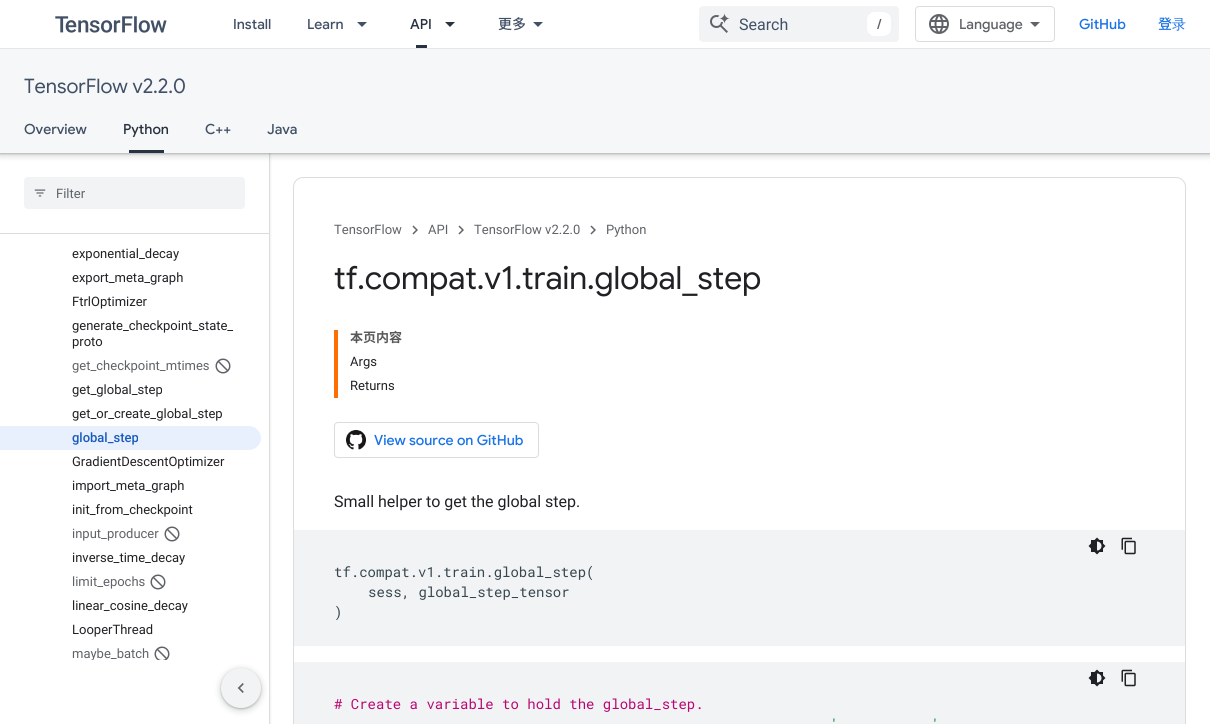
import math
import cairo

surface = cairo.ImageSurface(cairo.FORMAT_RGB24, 1210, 724)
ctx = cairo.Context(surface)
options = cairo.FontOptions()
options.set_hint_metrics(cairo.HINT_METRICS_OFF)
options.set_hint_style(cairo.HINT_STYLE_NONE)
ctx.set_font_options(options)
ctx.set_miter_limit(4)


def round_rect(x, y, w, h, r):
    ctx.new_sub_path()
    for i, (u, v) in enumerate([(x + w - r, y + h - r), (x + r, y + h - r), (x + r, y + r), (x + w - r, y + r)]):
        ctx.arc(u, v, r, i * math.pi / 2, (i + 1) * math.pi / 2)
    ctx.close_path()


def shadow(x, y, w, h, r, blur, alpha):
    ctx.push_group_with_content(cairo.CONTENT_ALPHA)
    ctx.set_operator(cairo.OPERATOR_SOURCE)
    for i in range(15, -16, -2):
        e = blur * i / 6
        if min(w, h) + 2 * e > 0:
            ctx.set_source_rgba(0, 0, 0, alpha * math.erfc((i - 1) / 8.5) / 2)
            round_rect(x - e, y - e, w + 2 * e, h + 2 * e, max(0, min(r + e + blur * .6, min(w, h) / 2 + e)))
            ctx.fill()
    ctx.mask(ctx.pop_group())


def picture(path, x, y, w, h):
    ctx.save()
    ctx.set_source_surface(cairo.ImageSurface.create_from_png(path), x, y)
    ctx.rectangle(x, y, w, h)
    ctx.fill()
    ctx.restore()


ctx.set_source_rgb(1, 1, 1)
ctx.paint()
ctx.save()
ctx.rectangle(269, 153, 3, 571)
ctx.clip()
ctx.set_source_rgb(0.235, 0.251, 0.263)
shadow(-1, 0, 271, 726, 0, 1.5, 0.15)
ctx.restore()
ctx.save()
ctx.rectangle(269, 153, 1, 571)
ctx.clip()
ctx.set_source_rgb(0.235, 0.251, 0.263)
shadow(0, 1, 269, 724, 0, 1, 0.3)
ctx.restore()
ctx.set_source_rgb(0.235, 0.251, 0.263)
shadow(-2, 49, 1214, 108, 0, 3, 0.15)
shadow(0, 50, 1210, 104, 0, 1, 0.3)
ctx.set_source_rgb(1, 1, 1)
ctx.rectangle(0, 0, 1210, 48)
ctx.fill()
ctx.set_source_rgb(0.902, 0.902, 0.902)
ctx.rectangle(0, 48, 1210, 1)
ctx.fill()
picture("img1.png", 55, 16, 112, 17)
ctx.select_font_face("Google Sans Medium")
ctx.set_font_size(14)
ctx.set_source_rgb(0.259, 0.314, 0.4)
ctx.move_to(233, 29)
ctx.show_text("Install")
ctx.move_to(307, 29)
ctx.show_text("Learn")
ctx.new_path()
ctx.move_to(357, 22)
ctx.line_to(367, 22)
ctx.line_to(362, 27)
ctx.close_path()
ctx.fill()
ctx.set_source_rgb(0.161, 0.196, 0.255)
ctx.move_to(410, 29)
ctx.show_text("API")
ctx.rectangle(416, 45, 11, 3)
ctx.fill()
ctx.new_path()
ctx.move_to(445, 22)
ctx.line_to(455, 22)
ctx.line_to(450, 27)
ctx.close_path()
ctx.fill()
ctx.select_font_face("Noto Sans JP Medium")
ctx.set_source_rgb(0.259, 0.314, 0.4)
ctx.move_to(498, 29)
ctx.show_text("更多")
ctx.new_path()
ctx.move_to(533, 22)
ctx.line_to(543, 22)
ctx.line_to(538, 27)
ctx.close_path()
ctx.fill()
ctx.set_source_rgb(0.945, 0.953, 0.957)
round_rect(699, 6, 200, 36, 4)
ctx.fill()
picture("img2.png", 710, 13, 20, 20)
ctx.select_font_face("Roboto")
ctx.set_font_size(16)
ctx.set_source_rgb(0.259, 0.314, 0.4)
ctx.move_to(739, 30)
ctx.show_text("Search")
ctx.set_source_rgb(1, 1, 1)
round_rect(867, 12, 24, 24, 8)
ctx.fill()
ctx.select_font_face("Google Sans Medium")
ctx.set_font_size(14)
ctx.set_source_rgb(0.373, 0.388, 0.408)
ctx.move_to(877, 29)
ctx.show_text("/")
round_rect(915.5, 6.5, 139, 35, 3.5)
ctx.set_source_rgb(0.855, 0.863, 0.878)
ctx.set_line_width(1)
ctx.stroke()
picture("img3.png", 929, 14, 20, 20)
ctx.set_source_rgb(0.373, 0.388, 0.408)
ctx.move_to(959, 29)
ctx.show_text("Language")
ctx.new_path()
ctx.move_to(1035, 27)
ctx.line_to(1030, 22)
ctx.line_to(1040, 22)
ctx.close_path()
ctx.fill()
ctx.set_source_rgb(0.102, 0.451, 0.91)
ctx.move_to(1079, 29)
ctx.show_text("GitHub")
ctx.select_font_face("Noto Sans JP Medium")
ctx.move_to(1158, 29)
ctx.show_text("登")
ctx.select_font_face("WenQuanYi Zen Hei Medium")
ctx.move_to(1172, 29)
ctx.show_text("录")
ctx.set_source_rgb(0.961, 0.965, 0.969)
ctx.rectangle(0, 49, 1210, 104)
ctx.fill()
ctx.select_font_face("Google Sans")
ctx.set_font_size(20)
ctx.set_source_rgb(0.259, 0.314, 0.4)
ctx.move_to(24, 93)
ctx.show_text("TensorFlow v2.2.0")
ctx.select_font_face("Google Sans Medium")
ctx.set_font_size(14)
ctx.move_to(24, 134)
ctx.show_text("Overview")
ctx.set_source_rgb(0.161, 0.196, 0.255)
ctx.move_to(123, 134)
ctx.show_text("Python")
ctx.rectangle(129, 150, 35, 3)
ctx.fill()
ctx.set_source_rgb(0.259, 0.314, 0.4)
ctx.move_to(205, 134)
ctx.show_text("C++")
ctx.move_to(267, 134)
ctx.show_text("Java")
ctx.set_source_rgb(0.855, 0.863, 0.878)
ctx.rectangle(0, 233, 269, 1)
ctx.fill()
ctx.set_source_rgb(0.945, 0.953, 0.957)
round_rect(24, 177, 221, 32, 4)
ctx.fill()
picture("img4.png", 34, 189, 12, 8)
ctx.select_font_face("Roboto")
ctx.set_font_size(13)
ctx.set_source_rgb(0.373, 0.388, 0.408)
ctx.move_to(56, 198)
ctx.show_text("Filter")
ctx.set_source_rgb(0.125, 0.129, 0.141)
ctx.move_to(72, 258)
ctx.show_text("exponential_decay")
ctx.move_to(72, 282)
ctx.show_text("export_meta_graph")
ctx.move_to(72, 306)
ctx.show_text("FtrlOptimizer")
ctx.move_to(72, 330)
ctx.show_text("generate_checkpoint_state_")
ctx.move_to(72, 346)
ctx.show_text("proto")
ctx.set_source_rgb(0.373, 0.388, 0.408)
ctx.move_to(72, 370)
ctx.show_text("get_checkpoint_mtimes")
picture("img5.png", 215, 358, 16, 16)
ctx.set_source_rgb(0.125, 0.129, 0.141)
ctx.move_to(72, 394)
ctx.show_text("get_global_step")
ctx.move_to(72, 418)
ctx.show_text("get_or_create_global_step")
ctx.set_source_rgb(0.91, 0.941, 0.996)
ctx.new_path()
ctx.move_to(0, 426)
ctx.line_to(249, 426)
ctx.curve_to(255.5, 426, 261, 431.5, 261, 438)
ctx.curve_to(261, 444.5, 255.5, 450, 249, 450)
ctx.line_to(0, 450)
ctx.close_path()
ctx.fill()
ctx.select_font_face("Roboto Medium")
ctx.set_source_rgb(0.094, 0.353, 0.737)
ctx.move_to(72, 442)
ctx.show_text("global_step")
ctx.select_font_face("Roboto")
ctx.set_source_rgb(0.125, 0.129, 0.141)
ctx.move_to(72, 466)
ctx.show_text("GradientDescentOptimizer")
ctx.move_to(72, 490)
ctx.show_text("import_meta_graph")
ctx.move_to(72, 514)
ctx.show_text("init_from_checkpoint")
ctx.set_source_rgb(0.373, 0.388, 0.408)
ctx.move_to(72, 538)
ctx.show_text("input_producer")
picture("img5.png", 164, 526, 16, 16)
ctx.set_source_rgb(0.125, 0.129, 0.141)
ctx.move_to(72, 562)
ctx.show_text("inverse_time_decay")
ctx.set_source_rgb(0.373, 0.388, 0.408)
ctx.move_to(72, 586)
ctx.show_text("limit_epochs")
picture("img5.png", 150, 574, 16, 16)
ctx.set_source_rgb(0.125, 0.129, 0.141)
ctx.move_to(72, 610)
ctx.show_text("linear_cosine_decay")
ctx.move_to(72, 634)
ctx.show_text("LooperThread")
ctx.set_source_rgb(0.373, 0.388, 0.408)
ctx.move_to(72, 658)
ctx.show_text("maybe_batch")
picture("img6.png", 154, 646, 16, 14)
ctx.set_source_rgb(0.235, 0.251, 0.263)
shadow(219, 668, 44, 44, 22, 3, 0.15)
shadow(221, 669, 40, 40, 20, 1, 0.3)
ctx.set_source_rgb(0.945, 0.953, 0.957)
ctx.arc(241, 688, 20, 0, 2 * math.pi)
ctx.fill()
picture("img7.png", 237, 683, 7, 10)
round_rect(293.5, 177.5, 892, 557, 9.5)
ctx.set_source_rgb(0.855, 0.863, 0.878)
ctx.stroke()
ctx.set_source_rgb(0.373, 0.388, 0.408)
ctx.move_to(334, 234)
ctx.show_text("TensorFlow")
picture("img8.png", 412, 225, 6, 10)
ctx.move_to(428, 234)
ctx.show_text("API")
picture("img8.png", 458, 225, 6, 10)
ctx.move_to(474, 234)
ctx.show_text("TensorFlow v2.2.0")
picture("img8.png", 590, 225, 6, 10)
ctx.move_to(606, 234)
ctx.show_text("Python")
ctx.select_font_face("Google Sans")
ctx.set_font_size(32)
ctx.set_source_rgb(0.125, 0.129, 0.141)
ctx.move_to(334, 289)
ctx.show_text("tf.compat.v1.train.global_step")
ctx.set_source_rgb(1, 0.435, 0)
ctx.rectangle(334, 330, 4, 68)
ctx.fill()
ctx.select_font_face("Noto Sans JP", cairo.FONT_SLANT_NORMAL, cairo.FONT_WEIGHT_BOLD)
ctx.set_font_size(13)
ctx.set_source_rgb(0.349, 0.349, 0.349)
ctx.move_to(350, 342)
ctx.show_text("本页内容")
ctx.select_font_face("Roboto")
ctx.set_source_rgb(0.125, 0.129, 0.141)
ctx.move_to(350, 366)
ctx.show_text("Args")
ctx.move_to(350, 390)
ctx.show_text("Returns")
round_rect(334.5, 422.5, 204, 35, 3.5)
ctx.set_source_rgb(0.855, 0.863, 0.878)
ctx.stroke()
picture("img9.png", 346, 430, 20, 20)
ctx.select_font_face("Google Sans Medium")
ctx.set_font_size(14)
ctx.set_source_rgb(0.102, 0.451, 0.91)
ctx.move_to(374, 445)
ctx.show_text("View source on GitHub")
ctx.select_font_face("Roboto")
ctx.set_font_size(16)
ctx.set_source_rgb(0.125, 0.129, 0.141)
ctx.move_to(334, 507)
ctx.show_text("Small helper to get the global step.")
ctx.set_source_rgb(0.945, 0.953, 0.957)
ctx.rectangle(294, 530, 891, 116)
ctx.fill()
picture("img10.png", 1088, 537, 18, 18)
picture("img11.png", 1121, 537, 15, 18)
ctx.select_font_face("Roboto Mono")
ctx.set_font_size(14)
ctx.set_source_rgb(0.216, 0.278, 0.31)
ctx.move_to(334, 577)
ctx.show_text("tf.compat.v1.train.global_step(")
ctx.move_to(368, 597)
ctx.show_text("sess, global_step_tensor")
ctx.move_to(334, 617)
ctx.show_text(")")
ctx.set_source_rgb(0.945, 0.953, 0.957)
ctx.rectangle(294, 662, 891, 62)
ctx.fill()
picture("img10.png", 1088, 669, 18, 18)
picture("img11.png", 1121, 669, 15, 18)
ctx.set_source_rgb(0.722, 0.024, 0.447)
ctx.move_to(334, 709)
ctx.show_text("# Create a variable to hold the global_step.")
ctx.set_source_rgb(0.094, 0.502, 0.22)
ctx.move_to(830, 729)
ctx.show_text("'")
ctx.move_to(931, 729)
ctx.show_text("'")
ctx.set_source_rgb(1, 1, 1)
ctx.rectangle(91, 660, 3, 1)
ctx.fill()
surface.write_to_png("page.png")
